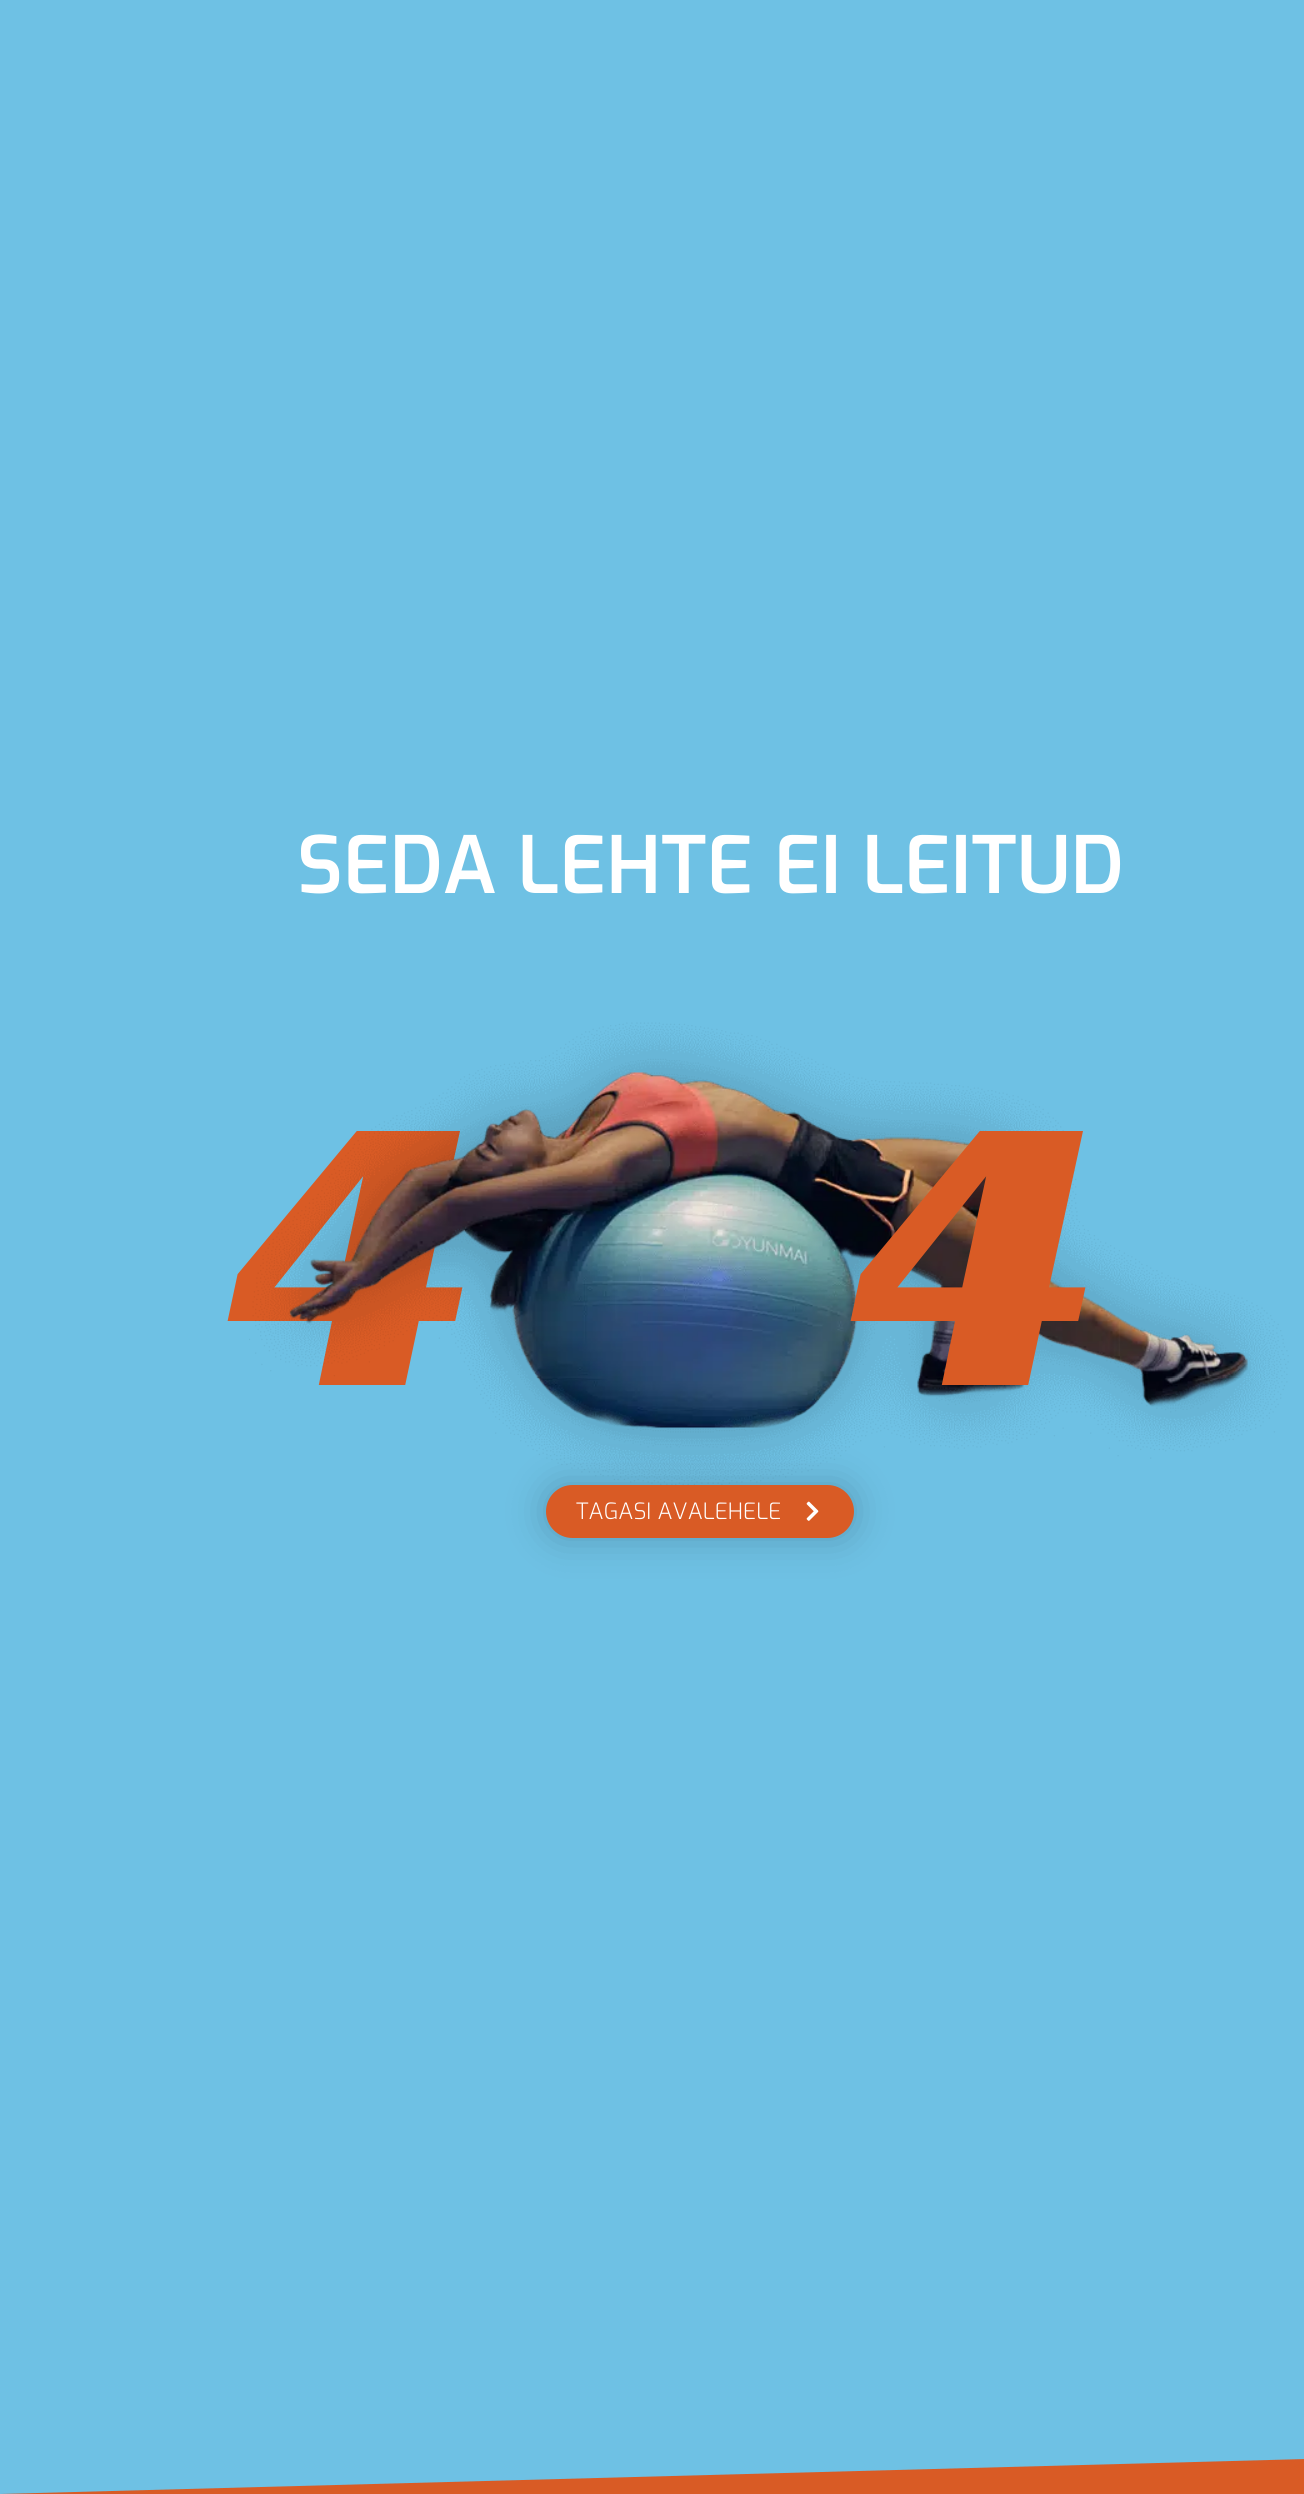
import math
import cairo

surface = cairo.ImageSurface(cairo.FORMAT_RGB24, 1304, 2494)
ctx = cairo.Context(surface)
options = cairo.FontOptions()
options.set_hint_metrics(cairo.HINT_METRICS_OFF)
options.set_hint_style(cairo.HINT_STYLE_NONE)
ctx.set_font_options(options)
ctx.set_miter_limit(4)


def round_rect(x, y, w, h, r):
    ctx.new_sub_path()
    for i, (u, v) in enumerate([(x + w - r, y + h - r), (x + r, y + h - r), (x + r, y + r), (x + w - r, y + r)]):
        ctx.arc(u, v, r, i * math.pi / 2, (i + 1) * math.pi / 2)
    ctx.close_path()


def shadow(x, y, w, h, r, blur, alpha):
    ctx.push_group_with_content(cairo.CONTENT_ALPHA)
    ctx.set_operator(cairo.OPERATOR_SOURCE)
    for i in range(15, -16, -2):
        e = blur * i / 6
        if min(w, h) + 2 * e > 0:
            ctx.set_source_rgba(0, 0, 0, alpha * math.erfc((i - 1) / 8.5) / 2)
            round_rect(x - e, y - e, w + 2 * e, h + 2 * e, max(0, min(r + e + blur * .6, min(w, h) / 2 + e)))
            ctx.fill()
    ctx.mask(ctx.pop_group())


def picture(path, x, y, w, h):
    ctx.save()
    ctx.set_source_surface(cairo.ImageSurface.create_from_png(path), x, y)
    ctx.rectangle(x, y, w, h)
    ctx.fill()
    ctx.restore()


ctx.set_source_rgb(0.431, 0.757, 0.894)
ctx.paint()
ctx.select_font_face("Exo SemiBold")
ctx.set_font_size(78.75)
ctx.set_source_rgb(1, 1, 1)
ctx.move_to(297, 893)
ctx.show_text("SEDA LEHTE EI LEITUD")
ctx.select_font_face("Racing Sans One")
ctx.set_font_size(400)
ctx.set_source_rgb(0.851, 0.357, 0.145)
ctx.move_to(228, 1385)
ctx.show_text("4")
picture("img1.png", 249, 1022, 1040, 463)
ctx.set_source_rgb(0, 0, 0)
shadow(546, 1485, 308, 53, 26.5, 19, 0.2)
ctx.set_source_rgb(0.851, 0.357, 0.145)
round_rect(546, 1485, 308, 53, 26.5)
ctx.fill()
ctx.select_font_face("Exo Light")
ctx.set_font_size(22.5)
ctx.set_source_rgb(1, 1, 1)
ctx.move_to(576, 1519)
ctx.show_text("TAGASI AVALEHELE")
picture("img2.png", 806, 1501, 13, 20)
ctx.select_font_face("Racing Sans One")
ctx.set_font_size(400)
ctx.set_source_rgb(0.851, 0.357, 0.145)
ctx.move_to(851, 1385)
ctx.show_text("4")
ctx.new_path()
ctx.move_to(-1, 2494)
ctx.line_to(-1, 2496)
ctx.line_to(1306, 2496)
ctx.line_to(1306, 2459)
ctx.close_path()
ctx.fill()
surface.write_to_png("page.png")
